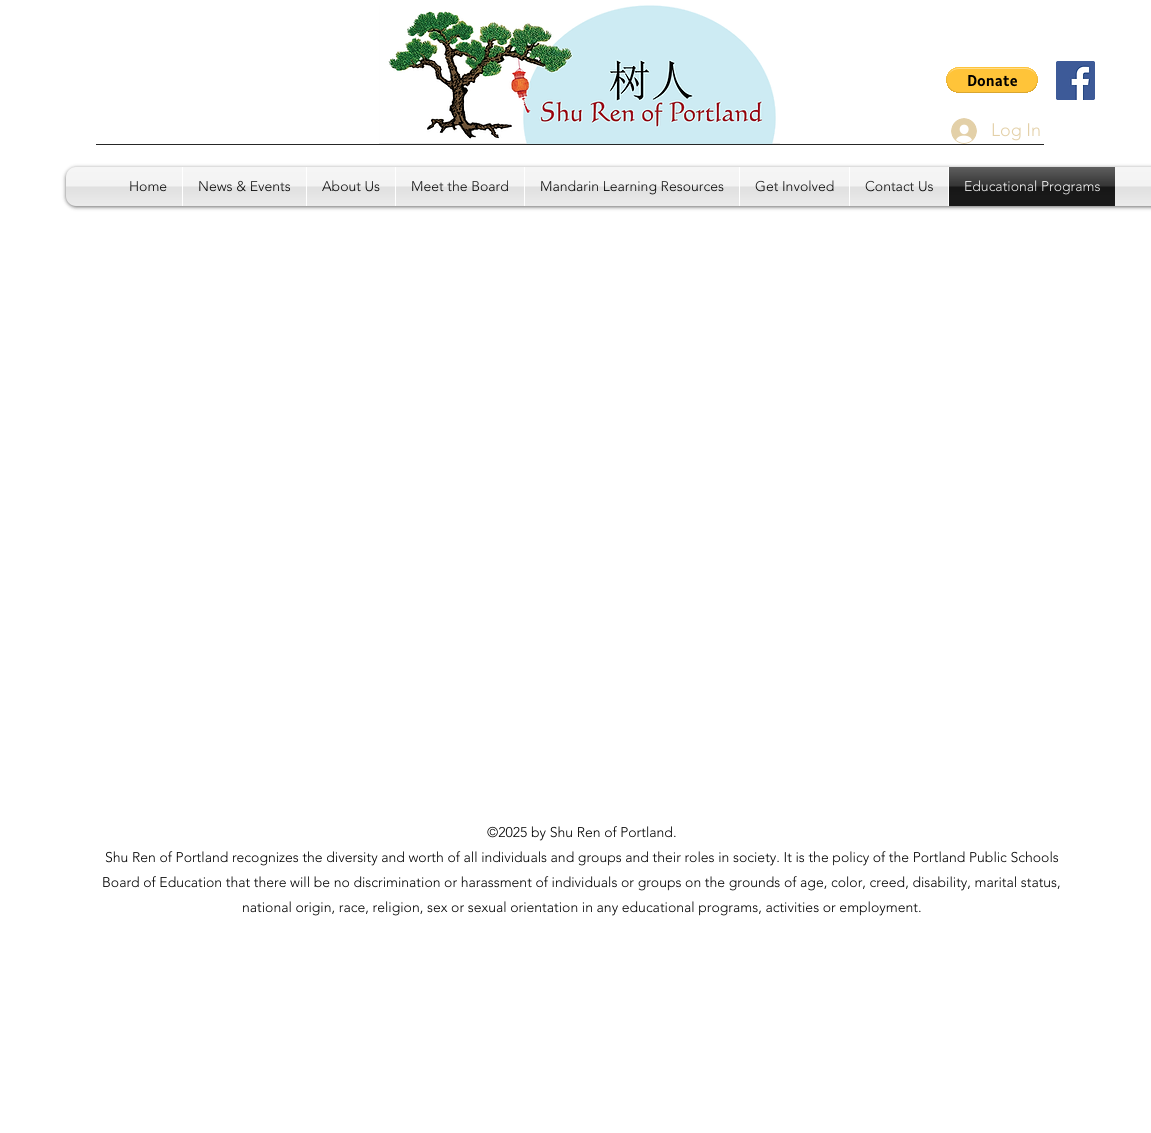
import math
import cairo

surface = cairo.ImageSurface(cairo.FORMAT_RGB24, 1151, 1133)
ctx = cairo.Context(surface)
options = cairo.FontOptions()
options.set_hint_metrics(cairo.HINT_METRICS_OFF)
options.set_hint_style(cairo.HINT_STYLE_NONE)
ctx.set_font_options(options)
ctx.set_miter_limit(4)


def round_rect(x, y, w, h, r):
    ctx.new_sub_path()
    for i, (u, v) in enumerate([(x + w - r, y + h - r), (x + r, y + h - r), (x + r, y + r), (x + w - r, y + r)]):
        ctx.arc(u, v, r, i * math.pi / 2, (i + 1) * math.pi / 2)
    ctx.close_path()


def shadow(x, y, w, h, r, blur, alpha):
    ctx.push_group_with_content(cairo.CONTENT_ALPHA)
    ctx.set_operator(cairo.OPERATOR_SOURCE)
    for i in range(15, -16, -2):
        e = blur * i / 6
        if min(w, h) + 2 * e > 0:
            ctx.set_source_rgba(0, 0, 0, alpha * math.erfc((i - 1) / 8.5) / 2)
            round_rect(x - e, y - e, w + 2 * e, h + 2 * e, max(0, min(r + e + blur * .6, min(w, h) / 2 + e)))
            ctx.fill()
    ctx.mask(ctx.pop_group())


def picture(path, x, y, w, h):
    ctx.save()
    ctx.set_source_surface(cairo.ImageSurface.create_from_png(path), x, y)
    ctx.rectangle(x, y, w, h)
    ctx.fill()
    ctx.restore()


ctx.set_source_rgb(1, 1, 1)
ctx.paint()
picture("img1.png", 379, 5, 401, 139)
picture("img2.png", 946, 67, 92, 26)
picture("img3.png", 1056, 61, 39, 39)
picture("img4.png", 951, 118, 26, 26)
ctx.select_font_face("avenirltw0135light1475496 Light")
ctx.set_font_size(18)
ctx.set_source_rgb(0.89, 0.816, 0.659)
ctx.move_to(991, 136)
ctx.show_text("Log In")
ctx.set_source_rgb(0.149, 0.149, 0.149)
ctx.rectangle(96, 144, 948, 1)
ctx.fill()
ctx.set_source_rgb(0, 0, 0)
shadow(66, 168, 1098, 39, 10, 2, 0.6)
ctx.set_source_rgb(0.945, 0.945, 0.945)
round_rect(66, 167, 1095, 39, 10)
ctx.fill()
picture("img5.png", 66, 167, 1085, 39)
ctx.rectangle(114, 167, 68, 39)
ctx.fill()
ctx.set_font_size(14)
ctx.set_source_rgb(0, 0, 0)
ctx.move_to(129, 191)
ctx.show_text("Home")
picture("img6.png", 114, 167, 68, 39)
ctx.set_source_rgb(0.945, 0.945, 0.945)
ctx.rectangle(183, 167, 123, 39)
ctx.fill()
ctx.set_source_rgb(1, 1, 1)
ctx.rectangle(182, 167, 1, 39)
ctx.fill()
ctx.set_source_rgb(0, 0, 0)
ctx.move_to(198, 191)
ctx.show_text("News & Events")
picture("img7.png", 183, 167, 123, 39)
ctx.set_source_rgb(0.945, 0.945, 0.945)
ctx.rectangle(307, 167, 88, 39)
ctx.fill()
ctx.set_source_rgb(1, 1, 1)
ctx.rectangle(306, 167, 1, 39)
ctx.fill()
ctx.set_source_rgb(0, 0, 0)
ctx.move_to(322, 191)
ctx.show_text("About Us")
picture("img8.png", 307, 167, 88, 39)
ctx.set_source_rgb(0.945, 0.945, 0.945)
ctx.rectangle(396, 167, 128, 39)
ctx.fill()
ctx.set_source_rgb(1, 1, 1)
ctx.rectangle(395, 167, 1, 39)
ctx.fill()
ctx.set_source_rgb(0, 0, 0)
ctx.move_to(411, 191)
ctx.show_text("Meet the Board")
picture("img9.png", 396, 167, 128, 39)
ctx.set_source_rgb(0.945, 0.945, 0.945)
ctx.rectangle(525, 167, 214, 39)
ctx.fill()
ctx.set_source_rgb(1, 1, 1)
ctx.rectangle(524, 167, 1, 39)
ctx.fill()
ctx.set_source_rgb(0, 0, 0)
ctx.move_to(540, 191)
ctx.show_text("Mandarin Learning Resources")
picture("img10.png", 525, 167, 214, 39)
ctx.set_source_rgb(0.945, 0.945, 0.945)
ctx.rectangle(740, 167, 109, 39)
ctx.fill()
ctx.set_source_rgb(1, 1, 1)
ctx.rectangle(739, 167, 1, 39)
ctx.fill()
ctx.set_source_rgb(0, 0, 0)
ctx.move_to(755, 191)
ctx.show_text("Get Involved")
picture("img11.png", 740, 167, 109, 39)
ctx.set_source_rgb(0.945, 0.945, 0.945)
ctx.rectangle(850, 167, 98, 39)
ctx.fill()
ctx.set_source_rgb(1, 1, 1)
ctx.rectangle(849, 167, 1, 39)
ctx.fill()
ctx.set_source_rgb(0, 0, 0)
ctx.move_to(865, 191)
ctx.show_text("Contact Us")
picture("img12.png", 850, 167, 98, 39)
ctx.set_source_rgb(0.098, 0.098, 0.098)
ctx.rectangle(949, 167, 166, 39)
ctx.fill()
ctx.set_source_rgb(1, 1, 1)
ctx.rectangle(948, 167, 1, 39)
ctx.fill()
ctx.move_to(964, 191)
ctx.show_text("Educational Programs")
picture("img13.png", 949, 167, 166, 28)
ctx.set_source_rgb(0, 0, 0)
ctx.move_to(487, 837)
ctx.show_text("©2025 by Shu Ren of Portland.")
ctx.move_to(105, 862)
ctx.show_text("Shu Ren of Portland recognizes the diversity and worth of all individuals and groups and their roles in society. It is the policy of the Portland Public Schools")
ctx.move_to(102, 887)
ctx.show_text("Board of Education that there will be no discrimination or harassment of individuals or groups on the grounds of age, color, creed, disability, marital status,")
ctx.move_to(242, 912)
ctx.show_text("national origin, race, religion, sex or sexual orientation in any educational programs, activities or employment.")
surface.write_to_png("page.png")
